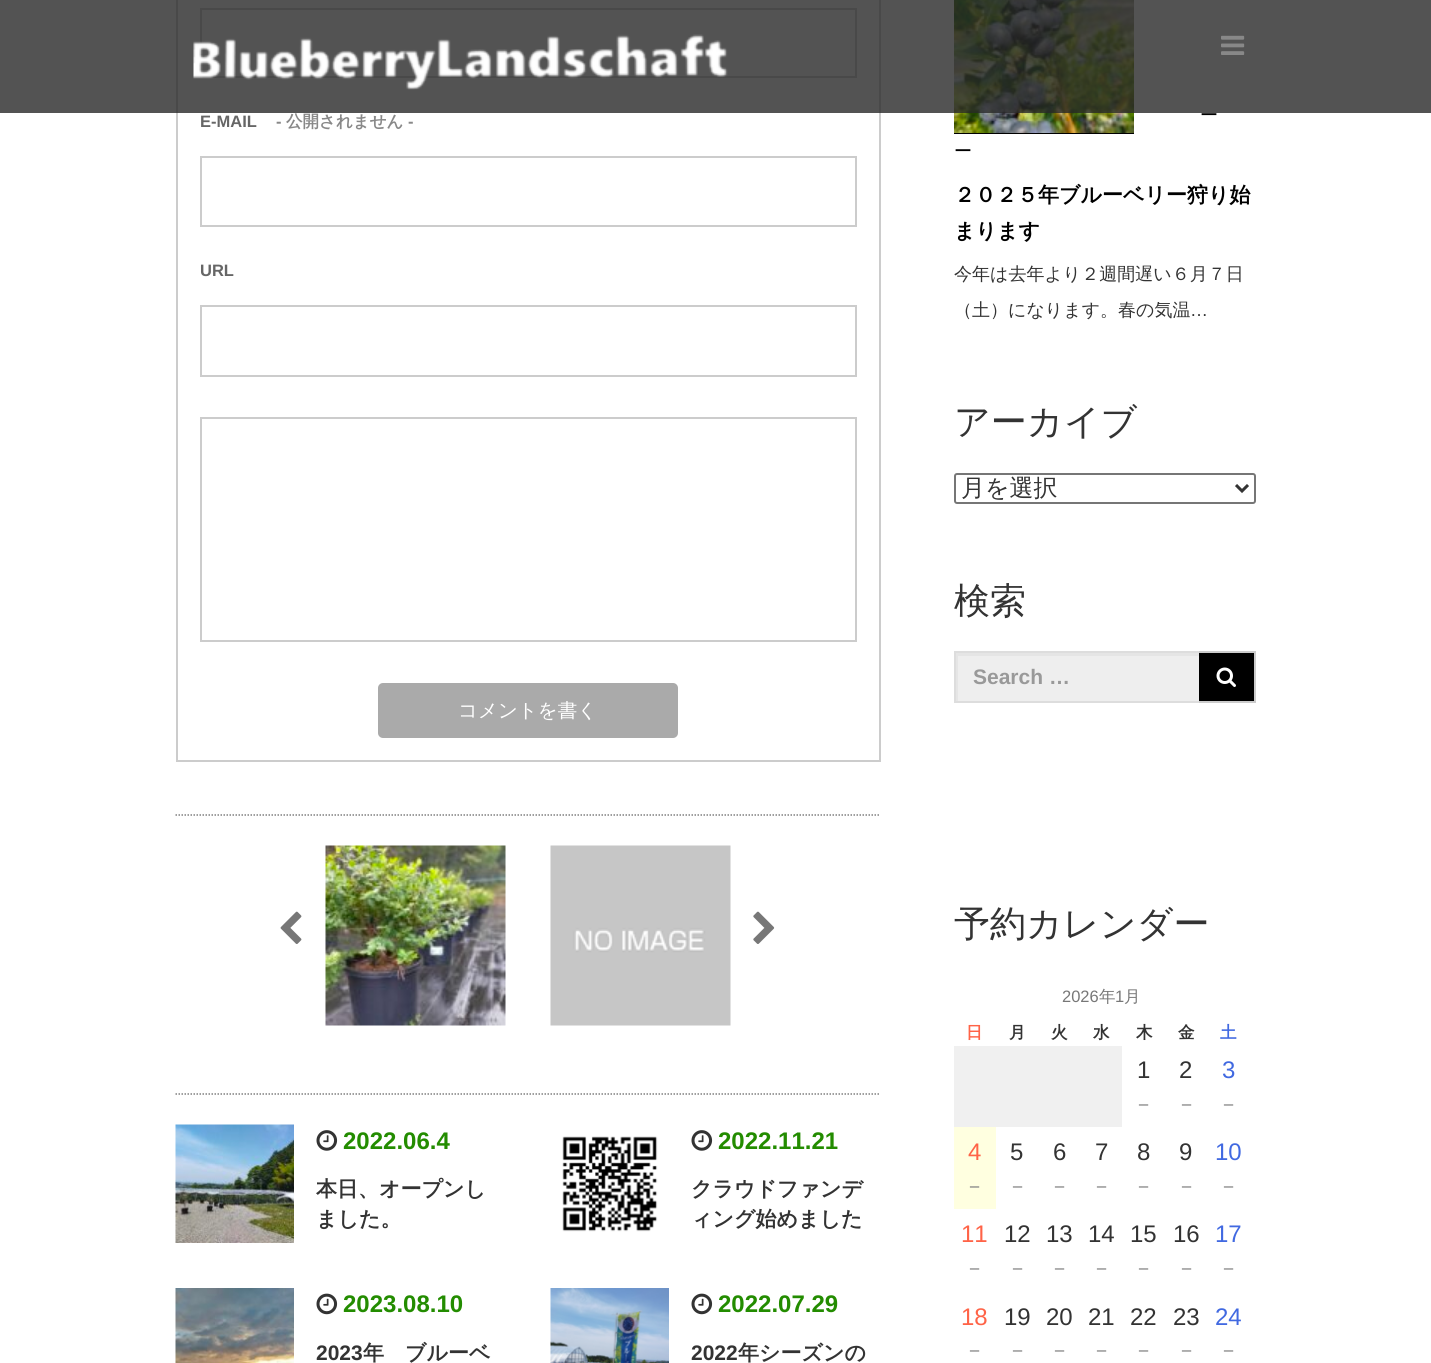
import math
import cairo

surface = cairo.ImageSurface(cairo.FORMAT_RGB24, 1431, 1363)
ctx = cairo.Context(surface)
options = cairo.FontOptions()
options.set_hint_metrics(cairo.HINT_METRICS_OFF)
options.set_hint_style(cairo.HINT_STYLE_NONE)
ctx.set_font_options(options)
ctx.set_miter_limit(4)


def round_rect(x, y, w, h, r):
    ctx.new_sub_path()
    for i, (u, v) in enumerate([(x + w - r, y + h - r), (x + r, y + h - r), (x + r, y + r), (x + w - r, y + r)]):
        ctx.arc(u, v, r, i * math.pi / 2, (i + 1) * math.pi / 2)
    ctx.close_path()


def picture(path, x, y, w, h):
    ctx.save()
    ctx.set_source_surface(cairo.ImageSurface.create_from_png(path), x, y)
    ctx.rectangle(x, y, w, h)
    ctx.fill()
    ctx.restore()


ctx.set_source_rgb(1, 1, 1)
ctx.paint()
ctx.rectangle(177, -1, 703, 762)
ctx.set_source_rgb(0.8, 0.8, 0.8)
ctx.stroke()
ctx.rectangle(201, 9, 655, 68)
ctx.stroke()
picture("img13.png", 954, 0, 180, 133)
ctx.set_source_rgba(0.157, 0.157, 0.157, 0.8)
ctx.rectangle(0, 0, 1431, 113)
ctx.fill()
picture("img1.png", 193, 34, 535, 56)
picture("img2.png", 1221, 35, 24, 20)
ctx.select_font_face("Liberation Sans", cairo.FONT_SLANT_NORMAL, cairo.FONT_WEIGHT_BOLD)
ctx.set_font_size(16.5)
ctx.set_source_rgb(0.4, 0.4, 0.4)
ctx.move_to(200, 127)
ctx.show_text("E-MAIL")
ctx.set_source_rgb(0.533, 0.533, 0.533)
ctx.move_to(276, 127)
ctx.show_text("-")
ctx.select_font_face("WenQuanYi Zen Hei", cairo.FONT_SLANT_NORMAL, cairo.FONT_WEIGHT_BOLD)
ctx.move_to(286, 127)
ctx.show_text("公開されません")
ctx.select_font_face("Liberation Sans", cairo.FONT_SLANT_NORMAL, cairo.FONT_WEIGHT_BOLD)
ctx.move_to(408, 127)
ctx.show_text("-")
ctx.rectangle(201, 157, 655, 69)
ctx.set_source_rgb(0.8, 0.8, 0.8)
ctx.stroke()
ctx.set_source_rgb(0.4, 0.4, 0.4)
ctx.move_to(200, 276)
ctx.show_text("URL")
ctx.rectangle(201, 306, 655, 70)
ctx.set_source_rgb(0.8, 0.8, 0.8)
ctx.stroke()
ctx.rectangle(201, 418, 655, 223)
ctx.stroke()
ctx.set_source_rgb(0.667, 0.667, 0.667)
round_rect(378, 683, 300, 55, 5)
ctx.fill()
ctx.select_font_face("WenQuanYi Zen Hei Medium")
ctx.set_font_size(19.5)
ctx.set_source_rgb(1, 1, 1)
ctx.move_to(458, 717)
ctx.show_text("コメントを書く")
ctx.new_path()
ctx.move_to(175.5, 815)
ctx.line_to(880.5, 815)
ctx.set_source_rgb(0.502, 0.502, 0.502)
ctx.set_line_width(1.5)
ctx.set_dash([1.5, 1.5])
ctx.stroke()
picture("img3.png", 280, 911, 22, 33)
picture("img4.png", 325, 845, 181, 181)
picture("img5.png", 550, 845, 181, 181)
picture("img6.png", 753, 911, 22, 33)
ctx.new_path()
ctx.move_to(175.5, 1094)
ctx.line_to(880.5, 1094)
ctx.stroke()
picture("img7.png", 175, 1124, 119, 119)
picture("img8.png", 316, 1130, 22, 21)
ctx.select_font_face("Liberation Sans", cairo.FONT_SLANT_NORMAL, cairo.FONT_WEIGHT_BOLD)
ctx.set_font_size(24)
ctx.set_source_rgb(0.137, 0.549, 0)
ctx.move_to(343, 1149)
ctx.show_text("2022.06.4")
ctx.select_font_face("WenQuanYi Zen Hei", cairo.FONT_SLANT_NORMAL, cairo.FONT_WEIGHT_BOLD)
ctx.set_font_size(21)
ctx.set_source_rgb(0.2, 0.2, 0.2)
ctx.move_to(316, 1196)
ctx.show_text("本日、オープンし")
ctx.move_to(316, 1226)
ctx.show_text("ました。")
picture("img9.png", 562, 1136, 96, 96)
picture("img8.png", 691, 1130, 22, 21)
ctx.select_font_face("Liberation Sans", cairo.FONT_SLANT_NORMAL, cairo.FONT_WEIGHT_BOLD)
ctx.set_font_size(24)
ctx.set_source_rgb(0.137, 0.549, 0)
ctx.move_to(718, 1149)
ctx.show_text("2022.11.21")
ctx.select_font_face("WenQuanYi Zen Hei", cairo.FONT_SLANT_NORMAL, cairo.FONT_WEIGHT_BOLD)
ctx.set_font_size(21)
ctx.set_source_rgb(0.2, 0.2, 0.2)
ctx.move_to(691, 1196)
ctx.show_text("クラウドファンデ")
ctx.move_to(691, 1226)
ctx.show_text("ィング始めました")
picture("img10.png", 175, 1288, 119, 75)
picture("img11.png", 316, 1293, 22, 22)
ctx.select_font_face("Liberation Sans", cairo.FONT_SLANT_NORMAL, cairo.FONT_WEIGHT_BOLD)
ctx.set_font_size(24)
ctx.set_source_rgb(0.137, 0.549, 0)
ctx.move_to(343, 1312)
ctx.show_text("2023.08.10")
ctx.set_font_size(21)
ctx.set_source_rgb(0.2, 0.2, 0.2)
ctx.move_to(316, 1360)
ctx.show_text("2023")
ctx.select_font_face("WenQuanYi Zen Hei", cairo.FONT_SLANT_NORMAL, cairo.FONT_WEIGHT_BOLD)
ctx.move_to(363, 1360)
ctx.show_text("年　ブルーベ")
picture("img12.png", 550, 1288, 119, 75)
picture("img11.png", 691, 1293, 22, 22)
ctx.select_font_face("Liberation Sans", cairo.FONT_SLANT_NORMAL, cairo.FONT_WEIGHT_BOLD)
ctx.set_font_size(24)
ctx.set_source_rgb(0.137, 0.549, 0)
ctx.move_to(718, 1312)
ctx.show_text("2022.07.29")
ctx.set_font_size(21)
ctx.set_source_rgb(0.2, 0.2, 0.2)
ctx.move_to(691, 1360)
ctx.show_text("2022")
ctx.select_font_face("WenQuanYi Zen Hei", cairo.FONT_SLANT_NORMAL, cairo.FONT_WEIGHT_BOLD)
ctx.move_to(738, 1360)
ctx.show_text("年シーズンの")
ctx.set_source_rgb(0, 0, 0)
ctx.rectangle(954, 133, 180, 1)
ctx.fill()
ctx.select_font_face("WenQuanYi Zen Hei Medium")
ctx.set_font_size(18)
ctx.move_to(1200, 121)
ctx.show_text("ー")
ctx.move_to(954, 157)
ctx.show_text("ー")
ctx.select_font_face("WenQuanYi Zen Hei", cairo.FONT_SLANT_NORMAL, cairo.FONT_WEIGHT_BOLD)
ctx.set_font_size(21)
ctx.move_to(954, 202)
ctx.show_text("２０２５年ブルーベリー狩り始")
ctx.move_to(954, 238)
ctx.show_text("まります")
ctx.select_font_face("WenQuanYi Zen Hei Medium")
ctx.set_font_size(18)
ctx.set_source_rgb(0.2, 0.2, 0.2)
ctx.move_to(954, 280)
ctx.show_text("今年は去年より２週間遅い６月７日")
ctx.move_to(954, 316)
ctx.show_text("（土）になります。春の気温")
ctx.select_font_face("Liberation Sans")
ctx.move_to(1190, 316)
ctx.show_text("…")
ctx.select_font_face("WenQuanYi Zen Hei Medium")
ctx.set_font_size(36)
ctx.move_to(954, 434)
ctx.show_text("アーカイブ")
round_rect(955, 474, 300, 29, 2)
ctx.set_source_rgb(0.463, 0.463, 0.463)
ctx.set_line_width(2)
ctx.set_dash([])
ctx.stroke()
ctx.new_path()
ctx.move_to(1236, 485)
ctx.line_to(1242, 491)
ctx.line_to(1248, 485)
ctx.set_source_rgb(0.2, 0.2, 0.2)
ctx.set_line_width(3)
ctx.stroke()
ctx.set_font_size(24)
ctx.move_to(961, 496)
ctx.show_text("月を選択")
ctx.set_font_size(36)
ctx.move_to(954, 613)
ctx.show_text("検索")
ctx.set_source_rgb(0.933, 0.933, 0.933)
ctx.rectangle(958, 656, 241, 45)
ctx.fill()
ctx.save()
ctx.rectangle(956, 653, 244, 48)
ctx.clip()
ctx.set_source_rgb(0.898, 0.898, 0.898)
ctx.set_fill_rule(cairo.FILL_RULE_EVEN_ODD)
ctx.new_path()
ctx.move_to(807, 504)
ctx.line_to(1348, 504)
ctx.line_to(1348, 849)
ctx.line_to(807, 849)
ctx.close_path()
ctx.move_to(958, 656)
ctx.line_to(1203, 656)
ctx.line_to(1203, 704)
ctx.line_to(958, 704)
ctx.close_path()
ctx.fill()
ctx.restore()
ctx.set_source_rgb(0.867, 0.867, 0.867)
ctx.rectangle(954, 651, 246, 2)
ctx.fill()
ctx.rectangle(954, 701, 246, 2)
ctx.fill()
ctx.rectangle(954, 651, 2, 51)
ctx.fill()
ctx.select_font_face("Liberation Sans", cairo.FONT_SLANT_NORMAL, cairo.FONT_WEIGHT_BOLD)
ctx.set_font_size(21)
ctx.set_source_rgb(0.6, 0.6, 0.6)
ctx.move_to(973, 684)
ctx.show_text("Search …")
ctx.set_source_rgb(0, 0, 0)
ctx.rectangle(1199, 653, 55, 48)
ctx.fill()
ctx.set_source_rgb(0.8, 0.8, 0.8)
ctx.rectangle(1199, 651, 57, 2)
ctx.fill()
ctx.rectangle(1254, 651, 2, 51)
ctx.fill()
ctx.rectangle(1199, 701, 57, 2)
ctx.fill()
picture("img14.png", 1216, 667, 20, 20)
ctx.select_font_face("WenQuanYi Zen Hei Medium")
ctx.set_font_size(36)
ctx.set_source_rgb(0.2, 0.2, 0.2)
ctx.move_to(954, 936)
ctx.show_text("予約カレンダー")
ctx.select_font_face("Liberation Sans")
ctx.set_font_size(16.5)
ctx.set_source_rgb(0.467, 0.467, 0.467)
ctx.move_to(1062, 1002)
ctx.show_text("2026")
ctx.select_font_face("WenQuanYi Zen Hei Medium")
ctx.move_to(1099, 1002)
ctx.show_text("年")
ctx.select_font_face("Liberation Sans")
ctx.move_to(1115, 1002)
ctx.show_text("1")
ctx.select_font_face("WenQuanYi Zen Hei Medium")
ctx.move_to(1124, 1002)
ctx.show_text("月")
ctx.select_font_face("WenQuanYi Zen Hei", cairo.FONT_SLANT_NORMAL, cairo.FONT_WEIGHT_BOLD)
ctx.set_source_rgb(1, 0.388, 0.278)
ctx.move_to(966, 1038)
ctx.show_text("日")
ctx.set_source_rgb(0.2, 0.2, 0.2)
ctx.move_to(1009, 1038)
ctx.show_text("月")
ctx.move_to(1051, 1038)
ctx.show_text("火")
ctx.move_to(1093, 1038)
ctx.show_text("水")
ctx.move_to(1136, 1038)
ctx.show_text("木")
ctx.move_to(1178, 1038)
ctx.show_text("金")
ctx.set_source_rgb(0.255, 0.412, 0.882)
ctx.move_to(1220, 1038)
ctx.show_text("土")
ctx.set_source_rgb(0.941, 0.941, 0.941)
ctx.rectangle(954, 1046, 168, 81)
ctx.fill()
ctx.select_font_face("Liberation Sans")
ctx.set_font_size(24)
ctx.set_source_rgb(0.2, 0.2, 0.2)
ctx.move_to(1137, 1078)
ctx.show_text("1")
ctx.select_font_face("WenQuanYi Zen Hei Medium")
ctx.set_font_size(21)
ctx.set_source_rgb(0.533, 0.533, 0.533)
ctx.move_to(1133, 1111)
ctx.show_text("－")
ctx.select_font_face("Liberation Sans")
ctx.set_font_size(24)
ctx.set_source_rgb(0.2, 0.2, 0.2)
ctx.move_to(1179, 1078)
ctx.show_text("2")
ctx.select_font_face("WenQuanYi Zen Hei Medium")
ctx.set_font_size(21)
ctx.set_source_rgb(0.533, 0.533, 0.533)
ctx.move_to(1176, 1111)
ctx.show_text("－")
ctx.select_font_face("Liberation Sans")
ctx.set_font_size(24)
ctx.set_source_rgb(0.255, 0.412, 0.882)
ctx.move_to(1222, 1078)
ctx.show_text("3")
ctx.select_font_face("WenQuanYi Zen Hei Medium")
ctx.set_font_size(21)
ctx.set_source_rgb(0.533, 0.533, 0.533)
ctx.move_to(1218, 1111)
ctx.show_text("－")
ctx.set_source_rgb(1, 1, 0.878)
ctx.rectangle(954, 1127, 42, 82)
ctx.fill()
ctx.select_font_face("Liberation Sans")
ctx.set_font_size(24)
ctx.set_source_rgb(1, 0.388, 0.278)
ctx.move_to(968, 1160)
ctx.show_text("4")
ctx.select_font_face("WenQuanYi Zen Hei Medium")
ctx.set_font_size(21)
ctx.set_source_rgb(0.533, 0.533, 0.533)
ctx.move_to(964, 1193)
ctx.show_text("－")
ctx.select_font_face("Liberation Sans")
ctx.set_font_size(24)
ctx.set_source_rgb(0.2, 0.2, 0.2)
ctx.move_to(1010, 1160)
ctx.show_text("5")
ctx.select_font_face("WenQuanYi Zen Hei Medium")
ctx.set_font_size(21)
ctx.set_source_rgb(0.533, 0.533, 0.533)
ctx.move_to(1007, 1193)
ctx.show_text("－")
ctx.select_font_face("Liberation Sans")
ctx.set_font_size(24)
ctx.set_source_rgb(0.2, 0.2, 0.2)
ctx.move_to(1053, 1160)
ctx.show_text("6")
ctx.select_font_face("WenQuanYi Zen Hei Medium")
ctx.set_font_size(21)
ctx.set_source_rgb(0.533, 0.533, 0.533)
ctx.move_to(1049, 1193)
ctx.show_text("－")
ctx.select_font_face("Liberation Sans")
ctx.set_font_size(24)
ctx.set_source_rgb(0.2, 0.2, 0.2)
ctx.move_to(1095, 1160)
ctx.show_text("7")
ctx.select_font_face("WenQuanYi Zen Hei Medium")
ctx.set_font_size(21)
ctx.set_source_rgb(0.533, 0.533, 0.533)
ctx.move_to(1091, 1193)
ctx.show_text("－")
ctx.select_font_face("Liberation Sans")
ctx.set_font_size(24)
ctx.set_source_rgb(0.2, 0.2, 0.2)
ctx.move_to(1137, 1160)
ctx.show_text("8")
ctx.select_font_face("WenQuanYi Zen Hei Medium")
ctx.set_font_size(21)
ctx.set_source_rgb(0.533, 0.533, 0.533)
ctx.move_to(1133, 1193)
ctx.show_text("－")
ctx.select_font_face("Liberation Sans")
ctx.set_font_size(24)
ctx.set_source_rgb(0.2, 0.2, 0.2)
ctx.move_to(1179, 1160)
ctx.show_text("9")
ctx.select_font_face("WenQuanYi Zen Hei Medium")
ctx.set_font_size(21)
ctx.set_source_rgb(0.533, 0.533, 0.533)
ctx.move_to(1176, 1193)
ctx.show_text("－")
ctx.select_font_face("Liberation Sans")
ctx.set_font_size(24)
ctx.set_source_rgb(0.255, 0.412, 0.882)
ctx.move_to(1215, 1160)
ctx.show_text("10")
ctx.select_font_face("WenQuanYi Zen Hei Medium")
ctx.set_font_size(21)
ctx.set_source_rgb(0.533, 0.533, 0.533)
ctx.move_to(1218, 1193)
ctx.show_text("－")
ctx.select_font_face("Liberation Sans")
ctx.set_font_size(24)
ctx.set_source_rgb(1, 0.388, 0.278)
ctx.move_to(961, 1242)
ctx.show_text("11")
ctx.select_font_face("WenQuanYi Zen Hei Medium")
ctx.set_font_size(21)
ctx.set_source_rgb(0.533, 0.533, 0.533)
ctx.move_to(964, 1275)
ctx.show_text("－")
ctx.select_font_face("Liberation Sans")
ctx.set_font_size(24)
ctx.set_source_rgb(0.2, 0.2, 0.2)
ctx.move_to(1004, 1242)
ctx.show_text("12")
ctx.select_font_face("WenQuanYi Zen Hei Medium")
ctx.set_font_size(21)
ctx.set_source_rgb(0.533, 0.533, 0.533)
ctx.move_to(1007, 1275)
ctx.show_text("－")
ctx.select_font_face("Liberation Sans")
ctx.set_font_size(24)
ctx.set_source_rgb(0.2, 0.2, 0.2)
ctx.move_to(1046, 1242)
ctx.show_text("13")
ctx.select_font_face("WenQuanYi Zen Hei Medium")
ctx.set_font_size(21)
ctx.set_source_rgb(0.533, 0.533, 0.533)
ctx.move_to(1049, 1275)
ctx.show_text("－")
ctx.select_font_face("Liberation Sans")
ctx.set_font_size(24)
ctx.set_source_rgb(0.2, 0.2, 0.2)
ctx.move_to(1088, 1242)
ctx.show_text("14")
ctx.select_font_face("WenQuanYi Zen Hei Medium")
ctx.set_font_size(21)
ctx.set_source_rgb(0.533, 0.533, 0.533)
ctx.move_to(1091, 1275)
ctx.show_text("－")
ctx.select_font_face("Liberation Sans")
ctx.set_font_size(24)
ctx.set_source_rgb(0.2, 0.2, 0.2)
ctx.move_to(1130, 1242)
ctx.show_text("15")
ctx.select_font_face("WenQuanYi Zen Hei Medium")
ctx.set_font_size(21)
ctx.set_source_rgb(0.533, 0.533, 0.533)
ctx.move_to(1133, 1275)
ctx.show_text("－")
ctx.select_font_face("Liberation Sans")
ctx.set_font_size(24)
ctx.set_source_rgb(0.2, 0.2, 0.2)
ctx.move_to(1173, 1242)
ctx.show_text("16")
ctx.select_font_face("WenQuanYi Zen Hei Medium")
ctx.set_font_size(21)
ctx.set_source_rgb(0.533, 0.533, 0.533)
ctx.move_to(1176, 1275)
ctx.show_text("－")
ctx.select_font_face("Liberation Sans")
ctx.set_font_size(24)
ctx.set_source_rgb(0.255, 0.412, 0.882)
ctx.move_to(1215, 1242)
ctx.show_text("17")
ctx.select_font_face("WenQuanYi Zen Hei Medium")
ctx.set_font_size(21)
ctx.set_source_rgb(0.533, 0.533, 0.533)
ctx.move_to(1218, 1275)
ctx.show_text("－")
ctx.select_font_face("Liberation Sans")
ctx.set_font_size(24)
ctx.set_source_rgb(1, 0.388, 0.278)
ctx.move_to(961, 1325)
ctx.show_text("18")
ctx.select_font_face("WenQuanYi Zen Hei Medium")
ctx.set_font_size(21)
ctx.set_source_rgb(0.533, 0.533, 0.533)
ctx.move_to(964, 1357)
ctx.show_text("－")
ctx.select_font_face("Liberation Sans")
ctx.set_font_size(24)
ctx.set_source_rgb(0.2, 0.2, 0.2)
ctx.move_to(1004, 1325)
ctx.show_text("19")
ctx.select_font_face("WenQuanYi Zen Hei Medium")
ctx.set_font_size(21)
ctx.set_source_rgb(0.533, 0.533, 0.533)
ctx.move_to(1007, 1357)
ctx.show_text("－")
ctx.select_font_face("Liberation Sans")
ctx.set_font_size(24)
ctx.set_source_rgb(0.2, 0.2, 0.2)
ctx.move_to(1046, 1325)
ctx.show_text("20")
ctx.select_font_face("WenQuanYi Zen Hei Medium")
ctx.set_font_size(21)
ctx.set_source_rgb(0.533, 0.533, 0.533)
ctx.move_to(1049, 1357)
ctx.show_text("－")
ctx.select_font_face("Liberation Sans")
ctx.set_font_size(24)
ctx.set_source_rgb(0.2, 0.2, 0.2)
ctx.move_to(1088, 1325)
ctx.show_text("21")
ctx.select_font_face("WenQuanYi Zen Hei Medium")
ctx.set_font_size(21)
ctx.set_source_rgb(0.533, 0.533, 0.533)
ctx.move_to(1091, 1357)
ctx.show_text("－")
ctx.select_font_face("Liberation Sans")
ctx.set_font_size(24)
ctx.set_source_rgb(0.2, 0.2, 0.2)
ctx.move_to(1130, 1325)
ctx.show_text("22")
ctx.select_font_face("WenQuanYi Zen Hei Medium")
ctx.set_font_size(21)
ctx.set_source_rgb(0.533, 0.533, 0.533)
ctx.move_to(1133, 1357)
ctx.show_text("－")
ctx.select_font_face("Liberation Sans")
ctx.set_font_size(24)
ctx.set_source_rgb(0.2, 0.2, 0.2)
ctx.move_to(1173, 1325)
ctx.show_text("23")
ctx.select_font_face("WenQuanYi Zen Hei Medium")
ctx.set_font_size(21)
ctx.set_source_rgb(0.533, 0.533, 0.533)
ctx.move_to(1176, 1357)
ctx.show_text("－")
ctx.select_font_face("Liberation Sans")
ctx.set_font_size(24)
ctx.set_source_rgb(0.255, 0.412, 0.882)
ctx.move_to(1215, 1325)
ctx.show_text("24")
ctx.select_font_face("WenQuanYi Zen Hei Medium")
ctx.set_font_size(21)
ctx.set_source_rgb(0.533, 0.533, 0.533)
ctx.move_to(1218, 1357)
ctx.show_text("－")
surface.write_to_png("page.png")
